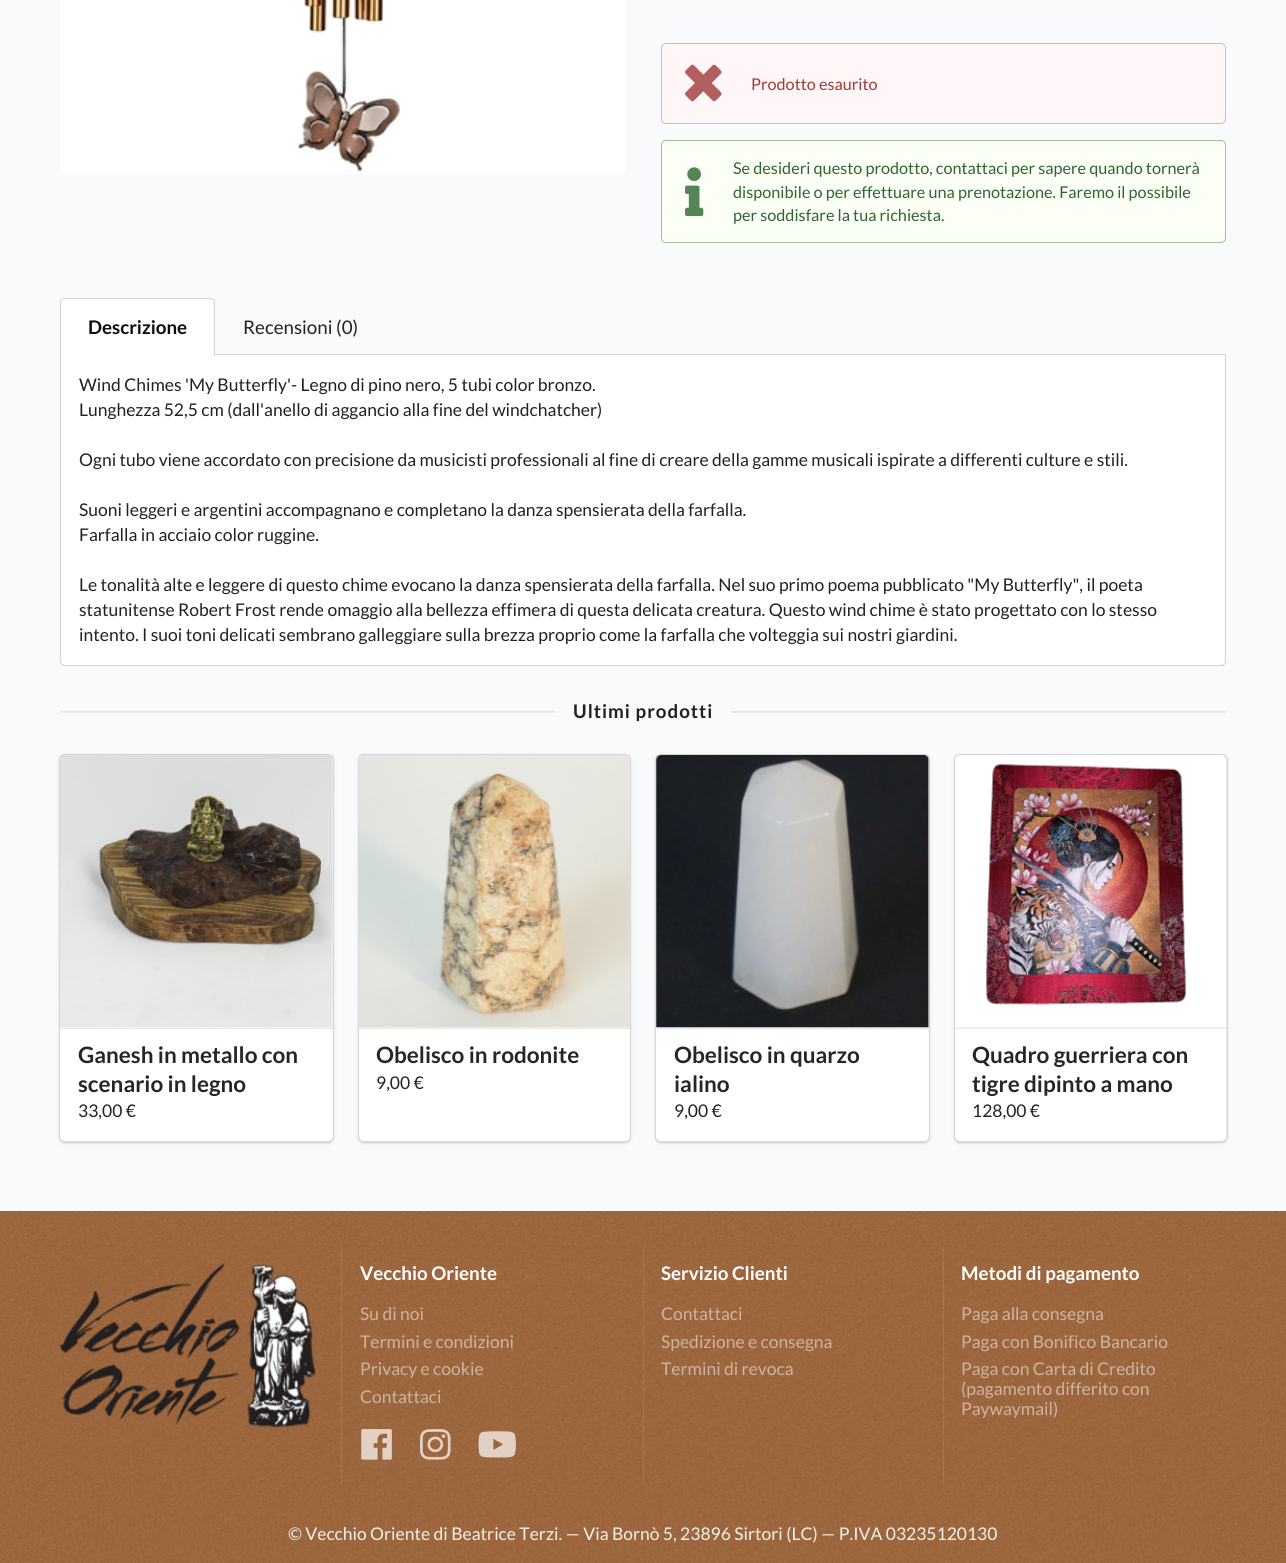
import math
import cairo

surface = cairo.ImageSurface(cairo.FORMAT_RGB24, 1286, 1563)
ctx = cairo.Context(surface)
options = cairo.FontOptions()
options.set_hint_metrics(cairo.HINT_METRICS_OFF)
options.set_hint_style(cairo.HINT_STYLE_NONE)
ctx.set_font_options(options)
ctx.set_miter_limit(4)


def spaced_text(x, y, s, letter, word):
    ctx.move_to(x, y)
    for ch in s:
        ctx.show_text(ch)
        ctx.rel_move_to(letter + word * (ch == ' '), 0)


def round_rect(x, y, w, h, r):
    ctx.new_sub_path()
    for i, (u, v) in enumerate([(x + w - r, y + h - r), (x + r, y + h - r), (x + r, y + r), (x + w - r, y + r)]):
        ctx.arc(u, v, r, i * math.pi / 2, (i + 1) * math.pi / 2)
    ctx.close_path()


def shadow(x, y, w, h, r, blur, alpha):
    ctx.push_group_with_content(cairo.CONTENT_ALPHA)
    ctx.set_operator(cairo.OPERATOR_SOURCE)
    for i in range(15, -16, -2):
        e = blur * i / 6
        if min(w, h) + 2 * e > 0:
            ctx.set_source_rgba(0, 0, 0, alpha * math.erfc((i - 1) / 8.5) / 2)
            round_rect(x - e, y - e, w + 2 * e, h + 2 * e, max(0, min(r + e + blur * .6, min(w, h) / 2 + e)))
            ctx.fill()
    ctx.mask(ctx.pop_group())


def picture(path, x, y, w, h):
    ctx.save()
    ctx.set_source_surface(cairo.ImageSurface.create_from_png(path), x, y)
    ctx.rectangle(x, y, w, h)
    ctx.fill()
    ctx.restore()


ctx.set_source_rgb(0.976, 0.98, 0.984)
ctx.paint()
picture("img1.png", 60, 0, 566, 174)
ctx.set_source_rgb(1, 0.965, 0.965)
round_rect(661.5, 43.5, 564, 80, 4.5)
ctx.fill_preserve()
ctx.set_source_rgb(0.878, 0.706, 0.706)
ctx.set_line_width(1)
ctx.stroke()
picture("img2.png", 685, 64, 37, 38)
ctx.select_font_face("Lato")
ctx.set_font_size(16.25)
ctx.set_source_rgb(0.624, 0.227, 0.22)
ctx.move_to(751, 90)
ctx.show_text("Prodotto esaurito")
ctx.set_source_rgb(0.988, 1, 0.961)
round_rect(661.5, 140.5, 564, 102, 4.5)
ctx.fill_preserve()
ctx.set_source_rgb(0.639, 0.761, 0.576)
ctx.stroke()
picture("img3.png", 685, 167, 19, 50)
ctx.set_source_rgb(0.173, 0.4, 0.176)
ctx.move_to(733, 174)
ctx.show_text("Se desideri questo prodotto, contattaci per sapere quando tornerà")
ctx.move_to(733, 198)
ctx.show_text("disponibile o per effettuare una prenotazione. Faremo il possibile")
ctx.move_to(733, 221)
ctx.show_text("per soddisfare la tua richiesta.")
ctx.set_source_rgb(0.831, 0.831, 0.835)
ctx.rectangle(215, 354, 1011, 1)
ctx.fill()
ctx.set_source_rgb(1, 1, 1)
ctx.new_path()
ctx.move_to(65, 298)
ctx.line_to(210, 298)
ctx.curve_to(213, 298, 215, 300, 215, 303)
ctx.line_to(215, 355)
ctx.line_to(60, 355)
ctx.line_to(60, 303)
ctx.curve_to(60, 300, 62, 298, 65, 298)
ctx.close_path()
ctx.fill()
ctx.set_source_rgb(0.831, 0.831, 0.835)
ctx.set_fill_rule(cairo.FILL_RULE_EVEN_ODD)
ctx.new_path()
ctx.move_to(65, 298)
ctx.line_to(210, 298)
ctx.curve_to(213, 298, 215, 300, 215, 302)
ctx.line_to(215, 355)
ctx.line_to(60, 355)
ctx.line_to(60, 302)
ctx.curve_to(60, 300, 62, 298, 65, 298)
ctx.close_path()
ctx.move_to(65, 299)
ctx.line_to(210, 299)
ctx.curve_to(212, 299, 214, 300, 214, 302)
ctx.line_to(214, 355)
ctx.line_to(61, 355)
ctx.line_to(61, 302)
ctx.curve_to(61, 300, 63, 299, 65, 299)
ctx.close_path()
ctx.fill()
ctx.select_font_face("Lato", cairo.FONT_SLANT_NORMAL, cairo.FONT_WEIGHT_BOLD)
ctx.set_font_size(18.75)
ctx.set_source_rgb(0.051, 0.051, 0.051)
ctx.move_to(88, 334)
ctx.show_text("Descrizione")
ctx.select_font_face("Lato")
ctx.set_source_rgb(0.125, 0.129, 0.129)
ctx.move_to(243, 334)
ctx.show_text("Recensioni (0)")
ctx.set_source_rgb(1, 1, 1)
ctx.new_path()
ctx.move_to(60, 355)
ctx.line_to(1226, 355)
ctx.line_to(1226, 661)
ctx.curve_to(1226, 664, 1224, 666, 1221, 666)
ctx.line_to(65, 666)
ctx.curve_to(62, 666, 60, 664, 60, 661)
ctx.close_path()
ctx.fill()
ctx.set_source_rgb(0.831, 0.831, 0.835)
ctx.new_path()
ctx.move_to(60, 355)
ctx.line_to(1226, 355)
ctx.line_to(1226, 661)
ctx.curve_to(1226, 664, 1224, 666, 1221, 666)
ctx.line_to(65, 666)
ctx.curve_to(62, 666, 60, 664, 60, 661)
ctx.close_path()
ctx.move_to(61, 355)
ctx.line_to(1225, 355)
ctx.line_to(1225, 661)
ctx.curve_to(1225, 663, 1223, 665, 1221, 665)
ctx.line_to(65, 665)
ctx.curve_to(63, 665, 61, 663, 61, 661)
ctx.close_path()
ctx.fill()
ctx.set_font_size(17.5)
ctx.set_source_rgb(0.125, 0.129, 0.129)
ctx.move_to(79, 391)
ctx.show_text("Wind Chimes 'My Butterfly'- Legno di pino nero, 5 tubi color bronzo.")
ctx.move_to(79, 416)
ctx.show_text("Lunghezza 52,5 cm (dall'anello di aggancio alla fine del windchatcher)")
ctx.move_to(79, 466)
ctx.show_text("Ogni tubo viene accordato con precisione da musicisti professionali al fine di creare della gamme musicali ispirate a differenti culture e stili.")
ctx.move_to(79, 516)
ctx.show_text("Suoni leggeri e argentini accompagnano e completano la danza spensierata della farfalla.")
ctx.move_to(79, 541)
ctx.show_text("Farfalla in acciaio color ruggine.")
ctx.move_to(79, 591)
ctx.show_text("Le tonalità alte e leggere di questo chime evocano la danza spensierata della farfalla. Nel suo primo poema pubblicato \"My Butterfly\", il poeta")
ctx.move_to(79, 616)
ctx.show_text("statunitense Robert Frost rende omaggio alla bellezza effimera di questa delicata creatura. Questo wind chime è stato progettato con lo stesso")
ctx.move_to(79, 641)
ctx.show_text("intento. I suoi toni delicati sembrano galleggiare sulla brezza proprio come la farfalla che volteggia sui nostri giardini.")
picture("img4.png", 60, 711, 495, 2)
ctx.select_font_face("Lato", cairo.FONT_SLANT_NORMAL, cairo.FONT_WEIGHT_BOLD)
ctx.set_font_size(18.75)
spaced_text(573, 718, "Ultimi prodotti", 1, 0)
picture("img5.png", 731, 711, 496, 2)
round_rect(59.5, 754.5, 274, 388, 5.5)
ctx.set_source_rgb(0.831, 0.831, 0.835)
ctx.stroke()
ctx.set_source_rgb(0.831, 0.831, 0.835)
shadow(60, 756, 273, 387, 5, 2, 1)
ctx.set_source_rgb(1, 1, 1)
round_rect(60, 755, 273, 386, 5)
ctx.fill()
ctx.set_source_rgba(0, 0, 0, 0.05)
ctx.rectangle(60, 755, 273, 273)
ctx.fill()
picture("img6.png", 60, 755, 273, 272)
ctx.set_source_rgb(0.914, 0.914, 0.914)
ctx.rectangle(60, 1028, 273, 1)
ctx.fill()
ctx.set_font_size(22.5)
ctx.set_source_rgb(0.149, 0.149, 0.149)
ctx.move_to(78, 1063)
ctx.show_text("Ganesh in metallo con")
ctx.move_to(78, 1092)
ctx.show_text("scenario in legno")
ctx.select_font_face("Lato")
ctx.set_font_size(17.5)
ctx.set_source_rgb(0.125, 0.129, 0.129)
ctx.move_to(78, 1117)
ctx.show_text("33,00 €")
round_rect(358.5, 754.5, 272, 388, 5.5)
ctx.set_source_rgb(0.831, 0.831, 0.835)
ctx.stroke()
ctx.set_source_rgb(0.831, 0.831, 0.835)
shadow(359, 756, 271, 387, 5, 2, 1)
ctx.set_source_rgb(1, 1, 1)
round_rect(359, 755, 271, 386, 5)
ctx.fill()
ctx.set_source_rgba(0, 0, 0, 0.05)
ctx.rectangle(359, 755, 271, 273)
ctx.fill()
picture("img7.png", 358, 755, 272, 273)
ctx.set_source_rgb(0.914, 0.914, 0.914)
ctx.rectangle(359, 1028, 271, 1)
ctx.fill()
ctx.select_font_face("Lato", cairo.FONT_SLANT_NORMAL, cairo.FONT_WEIGHT_BOLD)
ctx.set_font_size(22.5)
ctx.set_source_rgb(0.149, 0.149, 0.149)
ctx.move_to(376, 1063)
ctx.show_text("Obelisco in rodonite")
ctx.select_font_face("Lato")
ctx.set_font_size(17.5)
ctx.set_source_rgb(0.125, 0.129, 0.129)
ctx.move_to(376, 1089)
ctx.show_text("9,00 €")
round_rect(655.5, 754.5, 274, 388, 5.5)
ctx.set_source_rgb(0.831, 0.831, 0.835)
ctx.stroke()
ctx.set_source_rgb(0.831, 0.831, 0.835)
shadow(656, 756, 273, 387, 5, 2, 1)
ctx.set_source_rgb(1, 1, 1)
round_rect(656, 755, 273, 386, 5)
ctx.fill()
ctx.set_source_rgba(0, 0, 0, 0.05)
ctx.rectangle(656, 755, 273, 273)
ctx.fill()
picture("img8.png", 656, 755, 274, 273)
ctx.set_source_rgb(0.914, 0.914, 0.914)
ctx.rectangle(656, 1028, 273, 1)
ctx.fill()
ctx.select_font_face("Lato", cairo.FONT_SLANT_NORMAL, cairo.FONT_WEIGHT_BOLD)
ctx.set_font_size(22.5)
ctx.set_source_rgb(0.149, 0.149, 0.149)
ctx.move_to(674, 1063)
ctx.show_text("Obelisco in quarzo")
ctx.move_to(674, 1092)
ctx.show_text("ialino")
ctx.select_font_face("Lato")
ctx.set_font_size(17.5)
ctx.set_source_rgb(0.125, 0.129, 0.129)
ctx.move_to(674, 1117)
ctx.show_text("9,00 €")
round_rect(954.5, 754.5, 273, 388, 5.5)
ctx.set_source_rgb(0.831, 0.831, 0.835)
ctx.stroke()
ctx.set_source_rgb(0.831, 0.831, 0.835)
shadow(955, 756, 271, 387, 5, 2, 1)
ctx.set_source_rgb(1, 1, 1)
round_rect(955, 755, 271, 386, 5)
ctx.fill()
ctx.set_source_rgba(0, 0, 0, 0.05)
ctx.rectangle(955, 755, 271, 273)
ctx.fill()
picture("img9.png", 955, 755, 271, 272)
ctx.set_source_rgb(0.914, 0.914, 0.914)
ctx.rectangle(955, 1028, 271, 1)
ctx.fill()
ctx.select_font_face("Lato", cairo.FONT_SLANT_NORMAL, cairo.FONT_WEIGHT_BOLD)
ctx.set_font_size(22.5)
ctx.set_source_rgb(0.149, 0.149, 0.149)
ctx.move_to(972, 1063)
ctx.show_text("Quadro guerriera con")
ctx.move_to(972, 1092)
ctx.show_text("tigre dipinto a mano")
ctx.select_font_face("Lato")
ctx.set_font_size(17.5)
ctx.set_source_rgb(0.125, 0.129, 0.129)
ctx.move_to(972, 1117)
ctx.show_text("128,00 €")
ctx.set_source_rgb(0.651, 0.373, 0.165)
ctx.rectangle(0, 1211, 1286, 352)
ctx.fill()
picture("img10.png", 0, 1211, 1286, 352)
ctx.rectangle(43, 1246, 1201, 238)
ctx.fill()
picture("img11.png", 43, 1246, 1202, 238)
picture("img12.png", 60, 1263, 256, 165)
ctx.set_source_rgba(1, 1, 1, 0.1)
ctx.set_fill_rule(cairo.FILL_RULE_WINDING)
ctx.new_path()
ctx.move_to(341, 1246)
ctx.line_to(341, 1484)
ctx.line_to(643, 1484)
ctx.line_to(342, 1484)
ctx.line_to(342, 1246)
ctx.line_to(643, 1246)
ctx.close_path()
ctx.fill()
ctx.set_source_rgb(0.651, 0.373, 0.165)
ctx.rectangle(360, 1261, 266, 24)
ctx.fill()
picture("img13.png", 360, 1261, 267, 24)
ctx.select_font_face("Lato", cairo.FONT_SLANT_NORMAL, cairo.FONT_WEIGHT_BOLD)
ctx.set_font_size(18.75)
ctx.set_source_rgb(1, 1, 1)
ctx.move_to(360, 1280)
ctx.show_text("Vecchio Oriente")
ctx.set_source_rgb(0.651, 0.373, 0.165)
ctx.rectangle(360, 1304, 266, 102)
ctx.fill()
picture("img14.png", 360, 1303, 267, 104)
ctx.select_font_face("Lato")
ctx.set_font_size(17.5)
ctx.set_source_rgb(0.808, 0.702, 0.624)
ctx.move_to(360, 1320)
ctx.show_text("Su di noi")
ctx.move_to(360, 1348)
ctx.show_text("Termini e condizioni")
ctx.move_to(360, 1375)
ctx.show_text("Privacy e cookie")
ctx.move_to(360, 1403)
ctx.show_text("Contattaci")
ctx.set_source_rgb(0.651, 0.373, 0.165)
ctx.rectangle(360, 1424, 159, 42)
ctx.fill()
picture("img15.png", 360, 1423, 159, 44)
picture("img16.png", 361, 1429, 31, 31)
picture("img17.png", 420, 1429, 31, 31)
picture("img18.png", 478, 1431, 38, 27)
ctx.set_source_rgba(1, 1, 1, 0.1)
ctx.new_path()
ctx.move_to(643, 1246)
ctx.line_to(643, 1484)
ctx.line_to(943, 1484)
ctx.line_to(644, 1484)
ctx.line_to(644, 1246)
ctx.line_to(943, 1246)
ctx.close_path()
ctx.fill()
ctx.set_source_rgb(0.651, 0.373, 0.165)
ctx.rectangle(661, 1261, 265, 24)
ctx.fill()
picture("img19.png", 661, 1261, 266, 24)
ctx.select_font_face("Lato", cairo.FONT_SLANT_NORMAL, cairo.FONT_WEIGHT_BOLD)
ctx.set_font_size(18.75)
ctx.set_source_rgb(1, 1, 1)
ctx.move_to(661, 1280)
ctx.show_text("Servizio Clienti")
ctx.set_source_rgb(0.651, 0.373, 0.165)
ctx.rectangle(661, 1304, 265, 75)
ctx.fill()
picture("img20.png", 661, 1303, 266, 76)
ctx.select_font_face("Lato")
ctx.set_font_size(17.5)
ctx.set_source_rgb(0.808, 0.702, 0.624)
ctx.move_to(661, 1320)
ctx.show_text("Contattaci")
ctx.move_to(661, 1348)
ctx.show_text("Spedizione e consegna")
ctx.move_to(661, 1375)
ctx.show_text("Termini di revoca")
ctx.set_source_rgba(1, 1, 1, 0.1)
ctx.new_path()
ctx.move_to(943, 1246)
ctx.line_to(943, 1484)
ctx.line_to(1243, 1484)
ctx.line_to(944, 1484)
ctx.line_to(944, 1246)
ctx.line_to(1243, 1246)
ctx.close_path()
ctx.fill()
ctx.set_source_rgb(0.651, 0.373, 0.165)
ctx.rectangle(961, 1261, 265, 24)
ctx.fill()
picture("img21.png", 961, 1261, 266, 24)
ctx.select_font_face("Lato", cairo.FONT_SLANT_NORMAL, cairo.FONT_WEIGHT_BOLD)
ctx.set_font_size(18.75)
ctx.set_source_rgb(1, 1, 1)
ctx.move_to(961, 1280)
ctx.show_text("Metodi di pagamento")
ctx.set_source_rgb(0.651, 0.373, 0.165)
ctx.rectangle(961, 1304, 265, 115)
ctx.fill()
picture("img22.png", 961, 1303, 266, 116)
ctx.select_font_face("Lato")
ctx.set_font_size(17.5)
ctx.set_source_rgb(0.808, 0.702, 0.624)
ctx.move_to(961, 1320)
ctx.show_text("Paga alla consegna")
ctx.move_to(961, 1348)
ctx.show_text("Paga con Bonifico Bancario")
ctx.move_to(961, 1375)
ctx.show_text("Paga con Carta di Credito")
ctx.move_to(961, 1395)
ctx.show_text("(pagamento differito con")
ctx.move_to(961, 1415)
ctx.show_text("Paywaymail)")
ctx.set_source_rgb(0.651, 0.373, 0.165)
ctx.rectangle(60, 1504, 1166, 59)
ctx.fill()
picture("img23.png", 60, 1504, 1167, 59)
ctx.set_source_rgb(0.961, 0.941, 0.925)
ctx.move_to(288, 1540)
ctx.show_text("© Vecchio Oriente di Beatrice Terzi. — Via Bornò 5, 23896 Sirtori (LC) — P.IVA 03235120130")
surface.write_to_png("page.png")
